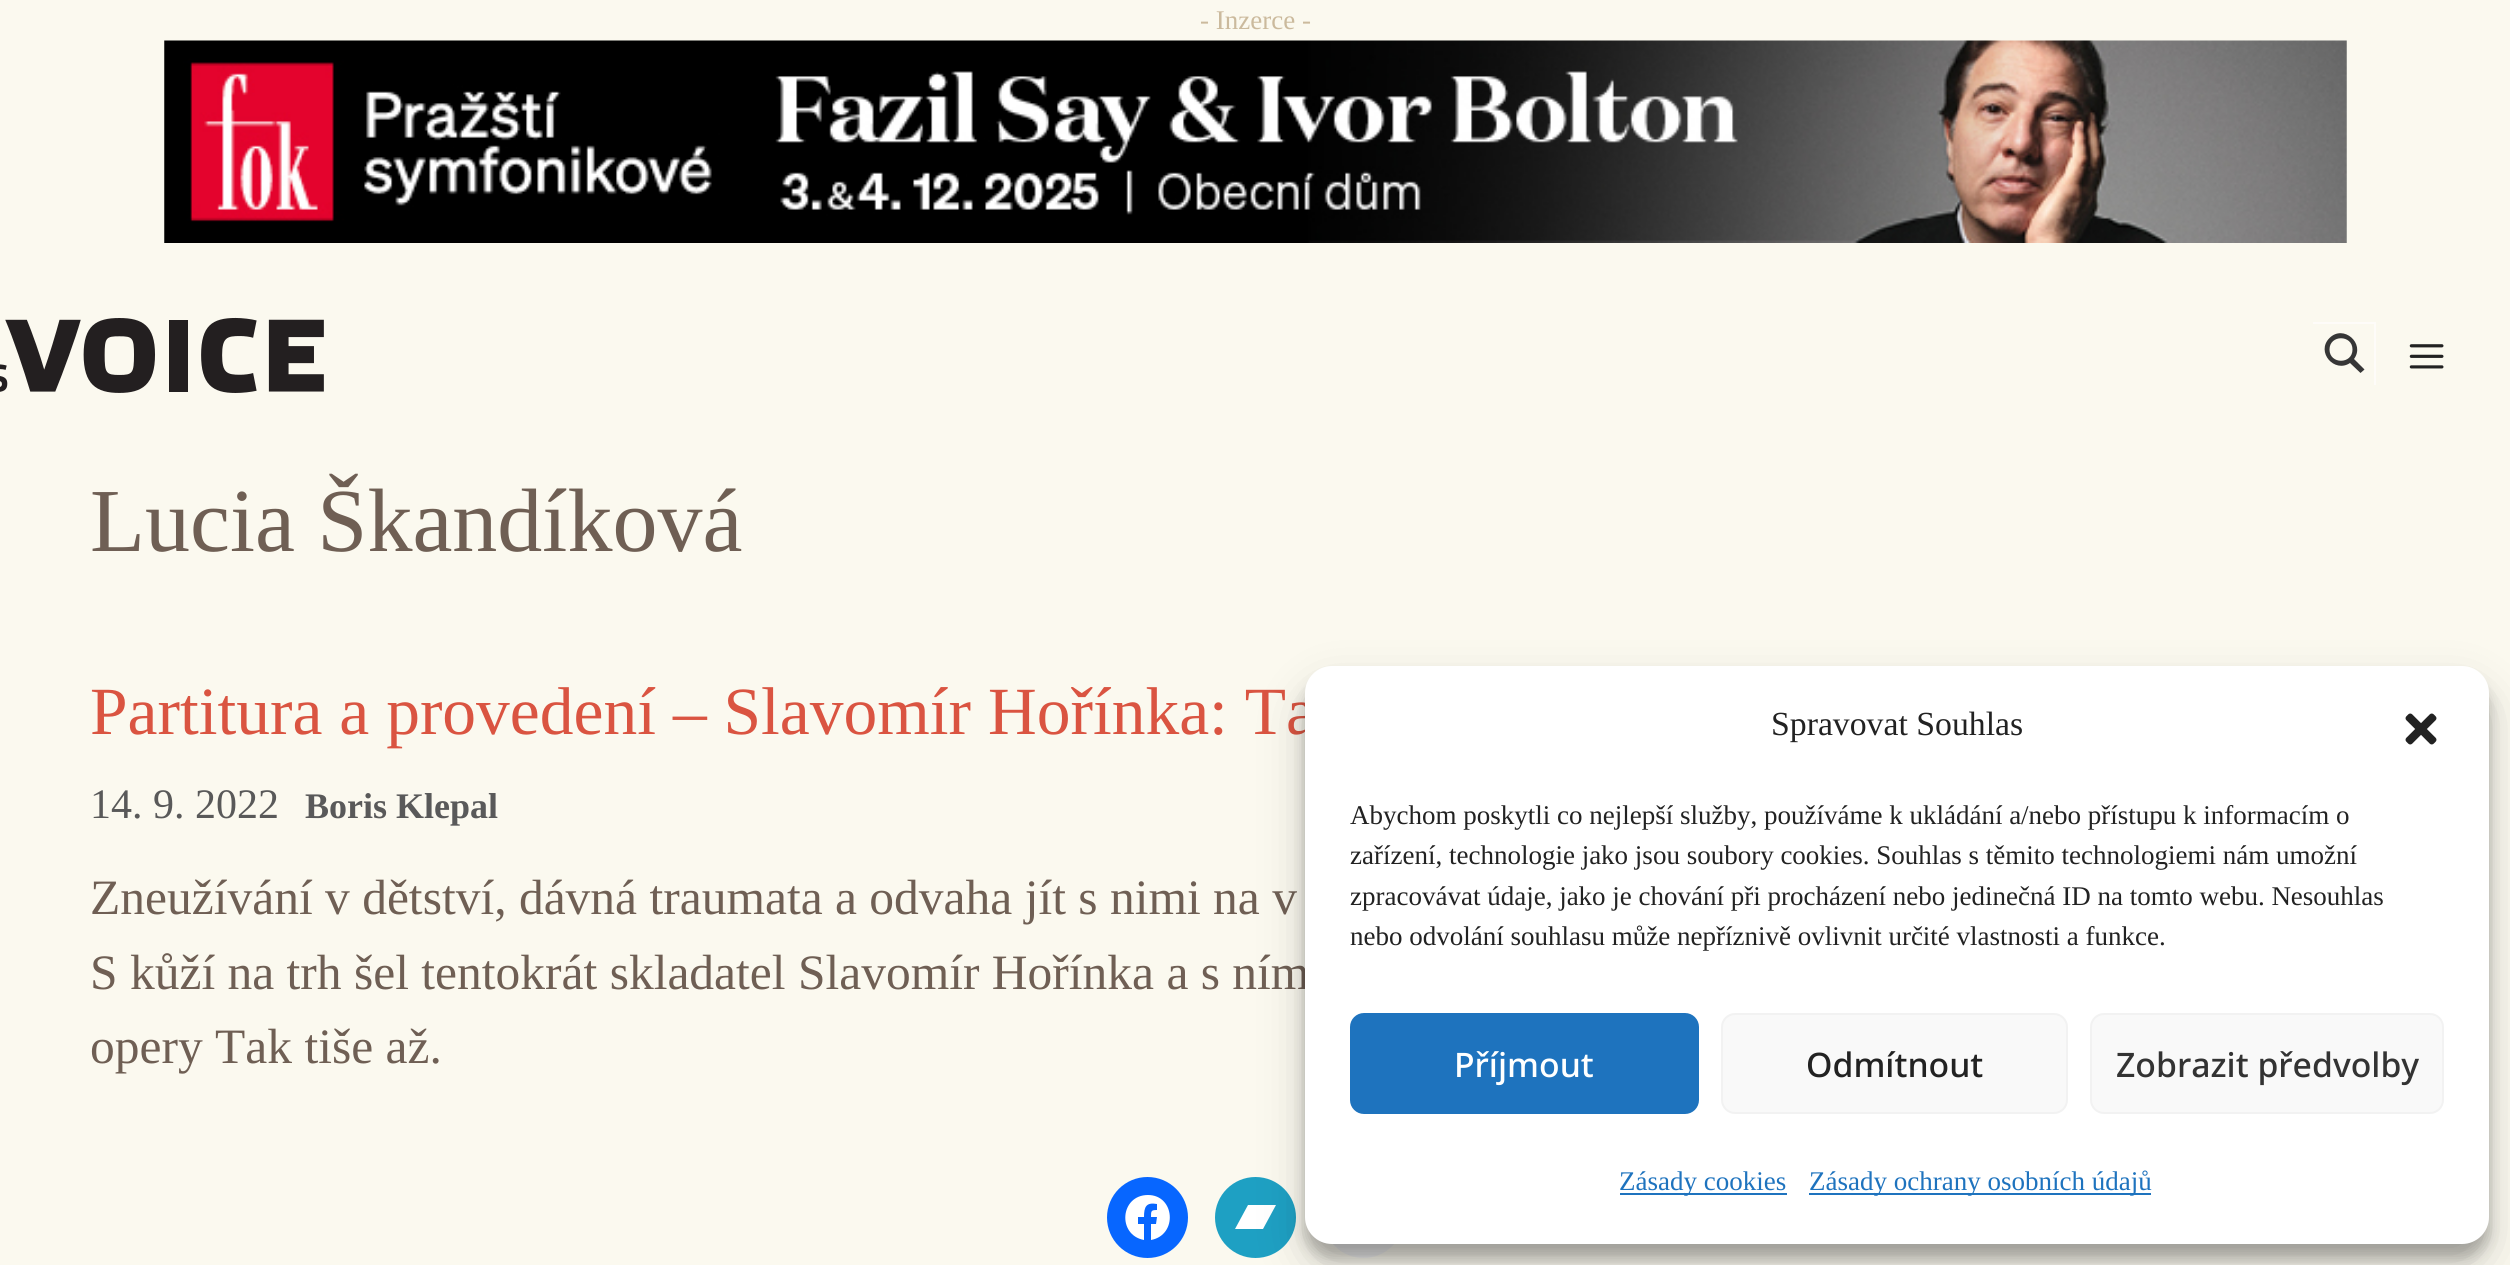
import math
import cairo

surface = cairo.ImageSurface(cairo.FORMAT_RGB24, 2510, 1265)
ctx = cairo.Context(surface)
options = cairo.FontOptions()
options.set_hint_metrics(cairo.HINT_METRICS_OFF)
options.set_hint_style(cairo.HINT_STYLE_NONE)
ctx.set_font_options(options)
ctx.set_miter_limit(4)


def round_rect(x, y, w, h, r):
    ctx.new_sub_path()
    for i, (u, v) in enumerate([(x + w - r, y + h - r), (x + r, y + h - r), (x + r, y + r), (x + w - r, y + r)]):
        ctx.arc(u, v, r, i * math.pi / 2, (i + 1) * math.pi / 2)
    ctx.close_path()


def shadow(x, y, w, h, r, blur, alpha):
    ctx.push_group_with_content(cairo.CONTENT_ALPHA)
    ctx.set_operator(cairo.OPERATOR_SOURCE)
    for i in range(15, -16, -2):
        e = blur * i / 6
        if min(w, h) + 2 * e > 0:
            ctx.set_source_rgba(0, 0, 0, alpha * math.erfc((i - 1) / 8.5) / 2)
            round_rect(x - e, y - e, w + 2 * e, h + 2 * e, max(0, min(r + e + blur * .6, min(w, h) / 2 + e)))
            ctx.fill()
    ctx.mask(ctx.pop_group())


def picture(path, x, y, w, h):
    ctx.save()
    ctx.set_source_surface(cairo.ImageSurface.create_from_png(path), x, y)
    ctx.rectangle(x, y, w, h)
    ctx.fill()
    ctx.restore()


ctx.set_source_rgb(0.984, 0.973, 0.937)
ctx.paint()
ctx.select_font_face("Liberation Serif")
ctx.set_font_size(27)
ctx.set_source_rgb(0.796, 0.729, 0.616)
ctx.move_to(1200, 29)
ctx.show_text("- Inzerce -")
picture("img1.png", 164, 40, 2183, 203)
picture("img2.png", 0, 317, 324, 76)
ctx.save()
ctx.rectangle(2313, 322, 63, 63)
ctx.clip()
ctx.set_source_rgb(0.996, 0.988, 0.976)
ctx.set_fill_rule(cairo.FILL_RULE_EVEN_ODD)
ctx.new_path()
ctx.move_to(2090, 99)
ctx.line_to(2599, 99)
ctx.line_to(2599, 608)
ctx.line_to(2090, 608)
ctx.close_path()
ctx.move_to(2311, 324)
ctx.line_to(2374, 324)
ctx.line_to(2374, 387)
ctx.line_to(2311, 387)
ctx.close_path()
ctx.fill()
ctx.restore()
ctx.set_source_rgb(0.212, 0.212, 0.212)
ctx.new_path()
ctx.move_to(2364.5, 369.5)
ctx.line_to(2354, 359)
ctx.curve_to(2365.5, 343.5, 2343.5, 324, 2329.5, 338)
ctx.curve_to(2315.5, 352, 2334.5, 373.5, 2350, 363)
ctx.line_to(2360.5, 373)
ctx.close_path()
ctx.move_to(2329.5, 349.5)
ctx.curve_to(2329.5, 334.5, 2352.5, 334.5, 2352.5, 349.5)
ctx.curve_to(2352.5, 364.5, 2329.5, 364.5, 2329.5, 349.5)
ctx.close_path()
ctx.fill()
picture("img3.png", 2409, 344, 35, 25)
ctx.set_font_size(90)
ctx.set_source_rgb(0.435, 0.373, 0.329)
ctx.move_to(90, 551)
ctx.show_text("Lucia Škandíková")
ctx.set_font_size(67.5)
ctx.set_source_rgb(0.855, 0.329, 0.255)
ctx.move_to(90, 734)
ctx.show_text("Partitura a provedení – Slavomír Hořínka: Ta")
ctx.set_font_size(42)
ctx.set_source_rgb(0.349, 0.349, 0.349)
ctx.move_to(90, 818)
ctx.show_text("14. 9. 2022")
ctx.select_font_face("Liberation Serif", cairo.FONT_SLANT_NORMAL, cairo.FONT_WEIGHT_BOLD)
ctx.set_font_size(36)
ctx.move_to(305, 818)
ctx.show_text("Boris Klepal")
ctx.select_font_face("Liberation Serif")
ctx.set_font_size(49.5)
ctx.set_source_rgb(0.435, 0.373, 0.329)
ctx.move_to(90, 914)
ctx.show_text("Zneužívání v dětství, dávná traumata a odvaha jít s nimi na v")
ctx.move_to(90, 989)
ctx.show_text("S kůží na trh šel tentokrát skladatel Slavomír Hořínka a s ním")
ctx.move_to(90, 1063)
ctx.show_text("opery Tak tiše až.")
ctx.set_source_rgb(0.118, 0.627, 0.765)
ctx.new_path()
ctx.arc(1255.5, 1217.5, 40.5, 0, 2 * math.pi)
ctx.fill()
ctx.set_source_rgb(0.941, 0.941, 0.941)
ctx.arc(1363.5, 1217.5, 40.5, 0, 2 * math.pi)
ctx.fill()
ctx.set_source_rgb(0, 0, 0)
shadow(1305, 680, 1184, 578, 27, 7, 0.23)
ctx.set_source_rgb(1, 1, 1)
ctx.new_path()
ctx.move_to(1263, 1229)
ctx.line_to(1235, 1229)
ctx.line_to(1248, 1205)
ctx.line_to(1276, 1205)
ctx.line_to(1263, 1229)
ctx.fill()
ctx.set_source_rgb(0, 0, 0)
shadow(1305, 689, 1184, 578, 27, 22.5, 0.19)
ctx.set_source_rgb(1, 1, 1)
round_rect(1305, 666, 1184, 578, 27)
ctx.fill()
ctx.set_font_size(33.75)
ctx.set_source_rgb(0.133, 0.133, 0.133)
ctx.move_to(1771, 735)
ctx.show_text("Spravovat Souhlas")
picture("img4.png", 2405, 713, 32, 32)
ctx.set_font_size(27)
ctx.move_to(1350, 824)
ctx.show_text("Abychom poskytli co nejlepší služby, používáme k ukládání a/nebo přístupu k informacím o")
ctx.move_to(1350, 864)
ctx.show_text("zařízení, technologie jako jsou soubory cookies. Souhlas s těmito technologiemi nám umožní")
ctx.move_to(1350, 905)
ctx.show_text("zpracovávat údaje, jako je chování při procházení nebo jedinečná ID na tomto webu. Nesouhlas")
ctx.move_to(1350, 945)
ctx.show_text("nebo odvolání souhlasu může nepříznivě ovlivnit určité vlastnosti a funkce.")
ctx.set_source_rgb(0.118, 0.451, 0.745)
round_rect(1351, 1014, 347, 99, 13)
ctx.fill_preserve()
ctx.stroke()
ctx.select_font_face("Noto Sans Medium")
ctx.set_font_size(33.75)
ctx.set_source_rgb(1, 1, 1)
ctx.move_to(1454, 1077)
ctx.show_text("Příjmout")
ctx.set_source_rgb(0.976, 0.976, 0.976)
round_rect(1722, 1014, 345, 99, 13)
ctx.fill_preserve()
ctx.set_source_rgb(0.949, 0.949, 0.949)
ctx.stroke()
ctx.set_source_rgb(0.133, 0.133, 0.133)
ctx.move_to(1806, 1077)
ctx.show_text("Odmítnout")
ctx.set_source_rgb(0.976, 0.976, 0.976)
round_rect(2091, 1014, 352, 99, 13)
ctx.fill_preserve()
ctx.set_source_rgb(0.949, 0.949, 0.949)
ctx.stroke()
ctx.set_source_rgb(0.2, 0.2, 0.2)
ctx.move_to(2116, 1077)
ctx.show_text("Zobrazit předvolby")
ctx.set_source_rgb(0.118, 0.451, 0.745)
ctx.rectangle(1620, 1193, 167, 2)
ctx.fill()
ctx.select_font_face("Liberation Serif")
ctx.set_font_size(27)
ctx.move_to(1619, 1190)
ctx.show_text("Zásady cookies")
ctx.rectangle(1809, 1193, 342, 2)
ctx.fill()
ctx.move_to(1809, 1190)
ctx.show_text("Zásady ochrany osobních údajů")
ctx.set_source_rgb(0.031, 0.4, 1)
ctx.new_path()
ctx.arc(1147.5, 1217.5, 40.5, 0, 2 * math.pi)
ctx.fill()
ctx.set_source_rgb(1, 1, 1)
ctx.new_path()
ctx.move_to(1148, 1195)
ctx.curve_to(1120, 1195, 1117, 1235, 1144, 1240)
ctx.line_to(1144, 1224)
ctx.line_to(1138, 1224)
ctx.line_to(1138, 1217)
ctx.line_to(1144, 1217)
ctx.curve_to(1144, 1207, 1146, 1202, 1157, 1204)
ctx.line_to(1157, 1210)
ctx.curve_to(1151, 1210, 1151, 1211, 1151, 1217)
ctx.line_to(1157, 1217)
ctx.line_to(1156, 1224)
ctx.line_to(1151, 1224)
ctx.line_to(1151, 1240)
ctx.curve_to(1178, 1235, 1175, 1195, 1148, 1195)
ctx.close_path()
ctx.fill()
surface.write_to_png("page.png")
